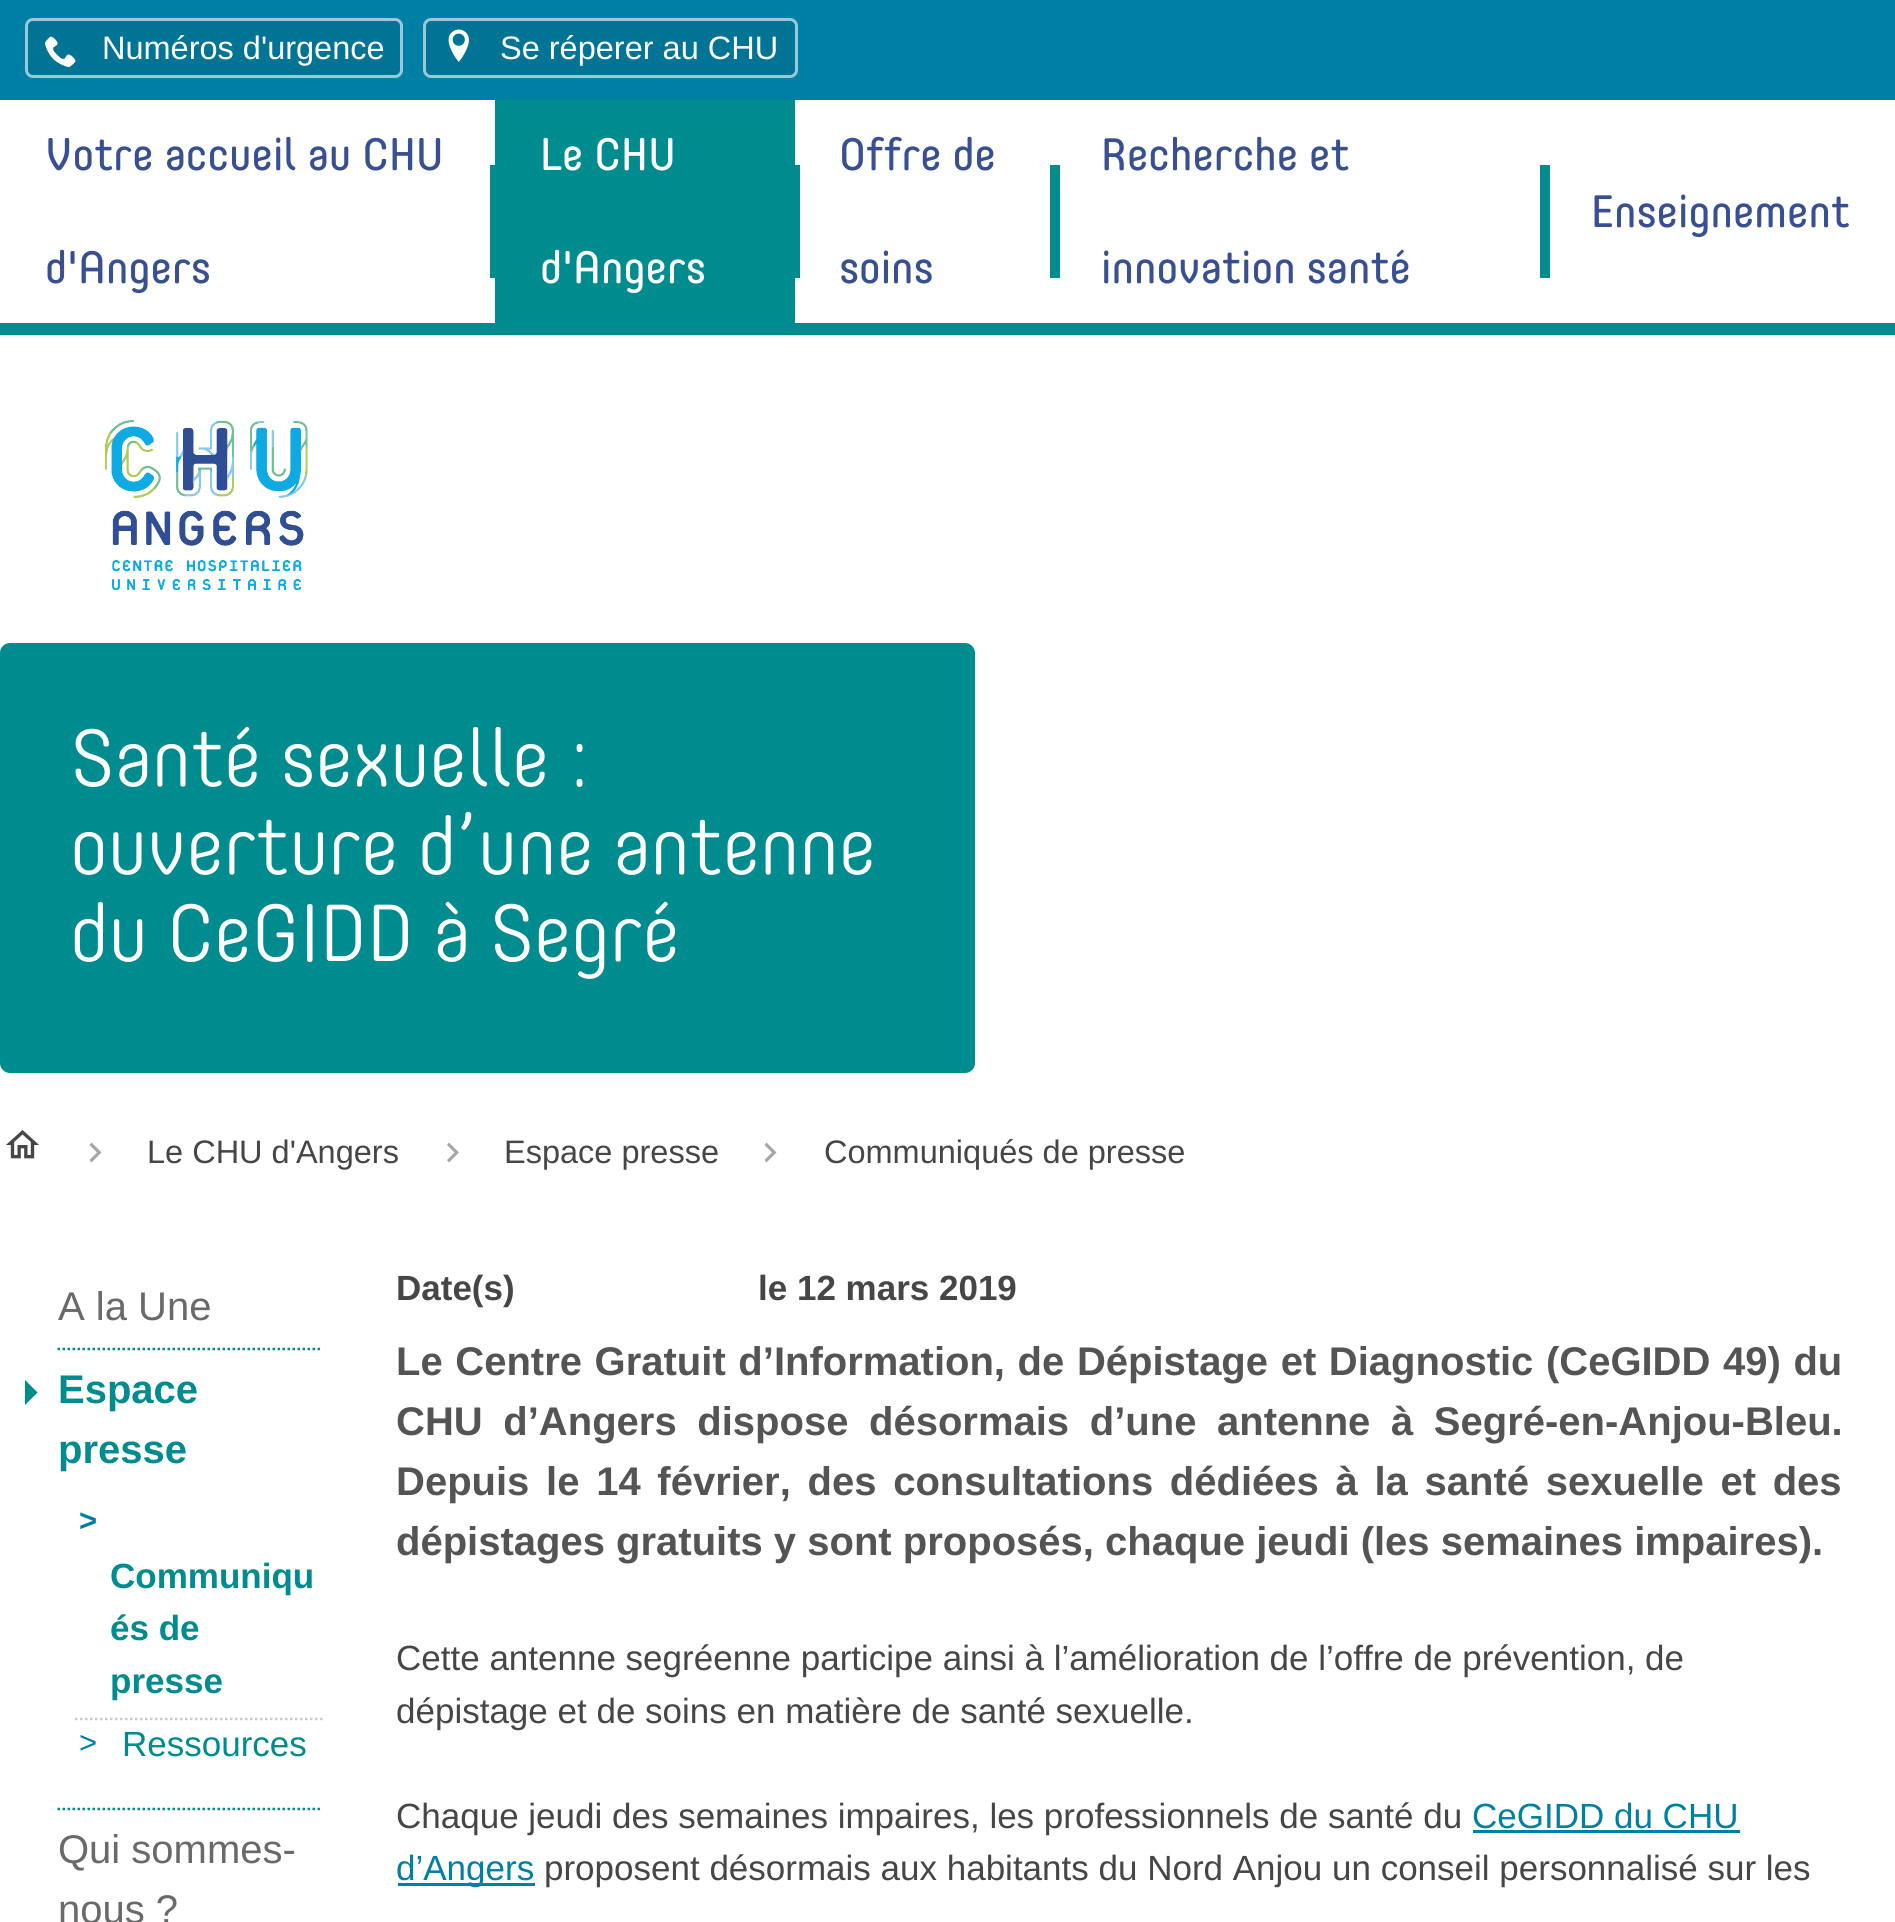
import math
import cairo

surface = cairo.ImageSurface(cairo.FORMAT_RGB24, 1895, 1922)
ctx = cairo.Context(surface)
options = cairo.FontOptions()
options.set_hint_metrics(cairo.HINT_METRICS_OFF)
options.set_hint_style(cairo.HINT_STYLE_NONE)
ctx.set_font_options(options)
ctx.set_miter_limit(4)


def spaced_text(x, y, s, letter, word):
    ctx.move_to(x, y)
    for ch in s:
        ctx.show_text(ch)
        ctx.rel_move_to(letter + word * (ch == ' '), 0)


def round_rect(x, y, w, h, r):
    ctx.new_sub_path()
    for i, (u, v) in enumerate([(x + w - r, y + h - r), (x + r, y + h - r), (x + r, y + r), (x + w - r, y + r)]):
        ctx.arc(u, v, r, i * math.pi / 2, (i + 1) * math.pi / 2)
    ctx.close_path()


def picture(path, x, y, w, h):
    ctx.save()
    ctx.set_source_surface(cairo.ImageSurface.create_from_png(path), x, y)
    ctx.rectangle(x, y, w, h)
    ctx.fill()
    ctx.restore()


ctx.set_source_rgb(1, 1, 1)
ctx.paint()
ctx.set_source_rgb(0, 0.498, 0.643)
ctx.rectangle(0, 0, 1895, 100)
ctx.fill()
picture("img1.png", 27, 20, 375, 57)
round_rect(26.5, 19.5, 375, 57, 6.5)
ctx.set_source_rgb(0.596, 0.788, 0.855)
ctx.set_line_width(3)
ctx.stroke()
picture("img2.png", 45, 36, 31, 31)
ctx.select_font_face("Liberation Sans")
ctx.set_font_size(32.5)
ctx.set_source_rgb(1, 1, 1)
ctx.move_to(102, 59)
ctx.show_text("Numéros d'urgence")
picture("img3.png", 425, 20, 372, 57)
round_rect(424.5, 19.5, 372, 57, 6.5)
ctx.set_source_rgb(0.596, 0.788, 0.855)
ctx.stroke()
picture("img4.png", 448, 29, 21, 33)
ctx.set_source_rgb(1, 1, 1)
ctx.move_to(500, 59)
ctx.show_text("Se réperer au CHU")
ctx.set_source_rgb(0, 0.545, 0.557)
ctx.rectangle(0, 323, 1895, 12)
ctx.fill()
ctx.select_font_face("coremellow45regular")
ctx.set_font_size(45)
ctx.set_source_rgb(0.22, 0.314, 0.569)
ctx.move_to(45, 170)
ctx.show_text("Votre accueil au CHU")
ctx.move_to(45, 283)
ctx.show_text("d'Angers")
ctx.set_source_rgb(0, 0.545, 0.557)
ctx.rectangle(490, 165, 5, 113)
ctx.fill()
ctx.rectangle(495, 100, 300, 223)
ctx.fill()
ctx.set_source_rgb(1, 1, 1)
ctx.move_to(540, 170)
ctx.show_text("Le CHU")
ctx.move_to(540, 283)
ctx.show_text("d'Angers")
ctx.set_source_rgb(0, 0.545, 0.557)
ctx.rectangle(795, 165, 5, 113)
ctx.fill()
ctx.set_source_rgb(0.22, 0.314, 0.569)
ctx.move_to(839, 170)
ctx.show_text("Offre de")
ctx.move_to(839, 283)
ctx.show_text("soins")
ctx.set_source_rgb(0, 0.545, 0.557)
ctx.rectangle(1050, 165, 10, 113)
ctx.fill()
ctx.set_source_rgb(0.22, 0.314, 0.569)
ctx.move_to(1101, 170)
ctx.show_text("Recherche et")
ctx.move_to(1101, 283)
ctx.show_text("innovation santé")
ctx.set_source_rgb(0, 0.545, 0.557)
ctx.rectangle(1540, 165, 10, 113)
ctx.fill()
ctx.set_source_rgb(0.22, 0.314, 0.569)
ctx.move_to(1591, 227)
ctx.show_text("Enseignement")
picture("img5.png", 105, 420, 203, 170)
ctx.set_source_rgb(0, 0.545, 0.557)
round_rect(0, 643, 975, 430, 10)
ctx.fill()
ctx.select_font_face("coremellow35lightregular")
ctx.set_font_size(80)
ctx.set_source_rgb(1, 1, 1)
ctx.move_to(70, 786)
ctx.show_text("Santé sexuelle :")
ctx.move_to(70, 874)
ctx.show_text("ouverture d’une antenne")
ctx.move_to(70, 961)
ctx.show_text("du CeGIDD à Segré")
picture("img6.png", 6, 1130, 33, 29)
ctx.set_source_rgb(0.651, 0.651, 0.651)
ctx.set_fill_rule(cairo.FILL_RULE_EVEN_ODD)
ctx.new_path()
ctx.move_to(89.5, 1160)
ctx.line_to(97, 1152.5)
ctx.line_to(89.5, 1145)
ctx.line_to(91.5, 1142.5)
ctx.line_to(101.5, 1152.5)
ctx.line_to(91.5, 1162.5)
ctx.close_path()
ctx.fill()
ctx.select_font_face("Liberation Sans")
ctx.set_font_size(32.5)
ctx.set_source_rgb(0.275, 0.275, 0.275)
ctx.move_to(147, 1163)
ctx.show_text("Le CHU d'Angers")
ctx.set_source_rgb(0.651, 0.651, 0.651)
ctx.new_path()
ctx.move_to(447, 1160)
ctx.line_to(454.5, 1152.5)
ctx.line_to(447, 1145)
ctx.line_to(449, 1142.5)
ctx.line_to(459, 1152.5)
ctx.line_to(449, 1162.5)
ctx.close_path()
ctx.fill()
ctx.set_source_rgb(0.275, 0.275, 0.275)
ctx.move_to(504, 1163)
ctx.show_text("Espace presse")
ctx.set_source_rgb(0.651, 0.651, 0.651)
ctx.new_path()
ctx.move_to(764.5, 1160)
ctx.line_to(772, 1152.5)
ctx.line_to(764.5, 1145)
ctx.line_to(766.5, 1142.5)
ctx.line_to(776.5, 1152.5)
ctx.line_to(766.5, 1162.5)
ctx.close_path()
ctx.fill()
ctx.set_source_rgb(0.275, 0.275, 0.275)
ctx.move_to(824, 1163)
ctx.show_text("Communiqués de presse")
ctx.new_path()
ctx.move_to(57.5, 1349)
ctx.line_to(322.5, 1349)
ctx.set_source_rgb(0, 0.545, 0.557)
ctx.set_line_width(2.5)
ctx.set_dash([2.5, 2.5])
ctx.stroke()
ctx.set_font_size(40)
ctx.set_source_rgb(0.412, 0.412, 0.412)
ctx.move_to(58, 1320)
ctx.show_text("A la Une")
ctx.new_path()
ctx.move_to(57.5, 1809)
ctx.line_to(322.5, 1809)
ctx.set_source_rgb(0, 0.545, 0.557)
ctx.stroke()
ctx.set_fill_rule(cairo.FILL_RULE_WINDING)
ctx.new_path()
ctx.move_to(25, 1405)
ctx.line_to(25, 1380)
ctx.line_to(37.5, 1392.5)
ctx.close_path()
ctx.fill()
ctx.select_font_face("Liberation Sans", cairo.FONT_SLANT_NORMAL, cairo.FONT_WEIGHT_BOLD)
ctx.move_to(58, 1403)
ctx.show_text("Espace")
ctx.move_to(58, 1463)
ctx.show_text("presse")
ctx.new_path()
ctx.move_to(75, 1719)
ctx.line_to(322.5, 1719)
ctx.set_source_rgb(0.796, 0.796, 0.796)
ctx.stroke()
ctx.set_font_size(31)
ctx.set_source_rgb(0, 0.498, 0.643)
ctx.move_to(79, 1531)
ctx.show_text(">")
ctx.set_font_size(35)
ctx.set_source_rgb(0, 0.545, 0.557)
ctx.move_to(110, 1588)
ctx.show_text("Communiqu")
ctx.move_to(110, 1640)
ctx.show_text("és de")
ctx.move_to(110, 1693)
ctx.show_text("presse")
ctx.select_font_face("Liberation Sans")
ctx.set_font_size(31)
ctx.set_source_rgb(0, 0.498, 0.643)
ctx.move_to(79, 1753)
ctx.show_text(">")
ctx.set_font_size(35)
ctx.set_source_rgb(0, 0.545, 0.557)
ctx.move_to(122, 1756)
ctx.show_text("Ressources")
ctx.set_font_size(40)
ctx.set_source_rgb(0.412, 0.412, 0.412)
ctx.move_to(58, 1863)
ctx.show_text("Qui sommes-")
ctx.move_to(58, 1923)
ctx.show_text("nous ?")
ctx.select_font_face("Liberation Sans", cairo.FONT_SLANT_NORMAL, cairo.FONT_WEIGHT_BOLD)
ctx.set_font_size(35)
ctx.set_source_rgb(0.275, 0.275, 0.275)
ctx.move_to(396, 1300)
ctx.show_text("Date(s)")
ctx.move_to(758, 1300)
ctx.show_text("le 12 mars 2019")
ctx.set_font_size(40)
ctx.set_source_rgb(0.329, 0.329, 0.329)
spaced_text(396, 1375, "Le Centre Gratuit d’Information, de Dépistage et Diagnostic (CeGIDD 49) du", 0, 1.5)
spaced_text(396, 1435, "CHU d’Angers dispose désormais d’une antenne à Segré-en-Anjou-Bleu.", 0, 9.5)
spaced_text(396, 1495, "Depuis le 14 février, des consultations dédiées à la santé sexuelle et des", 0, 5.6)
ctx.move_to(396, 1555)
ctx.show_text("dépistages gratuits y sont proposés, chaque jeudi (les semaines impaires).")
ctx.select_font_face("Liberation Sans")
ctx.set_font_size(35)
ctx.set_source_rgb(0.275, 0.275, 0.275)
ctx.move_to(396, 1670)
ctx.show_text("Cette antenne segréenne participe ainsi à l’amélioration de l’offre de prévention, de")
ctx.move_to(396, 1723)
ctx.show_text("dépistage et de soins en matière de santé sexuelle.")
ctx.move_to(396, 1828)
ctx.show_text("Chaque jeudi des semaines impaires, les professionnels de santé du")
ctx.set_source_rgb(0, 0.498, 0.643)
ctx.move_to(1472, 1828)
ctx.show_text("CeGIDD du CHU")
ctx.rectangle(1473, 1830, 267, 3)
ctx.fill()
ctx.rectangle(398, 1883, 137, 3)
ctx.fill()
ctx.move_to(396, 1880)
ctx.show_text("d’Angers")
ctx.set_source_rgb(0.275, 0.275, 0.275)
ctx.move_to(544, 1880)
ctx.show_text("proposent désormais aux habitants du Nord Anjou un conseil personnalisé sur les")
surface.write_to_png("page.png")
